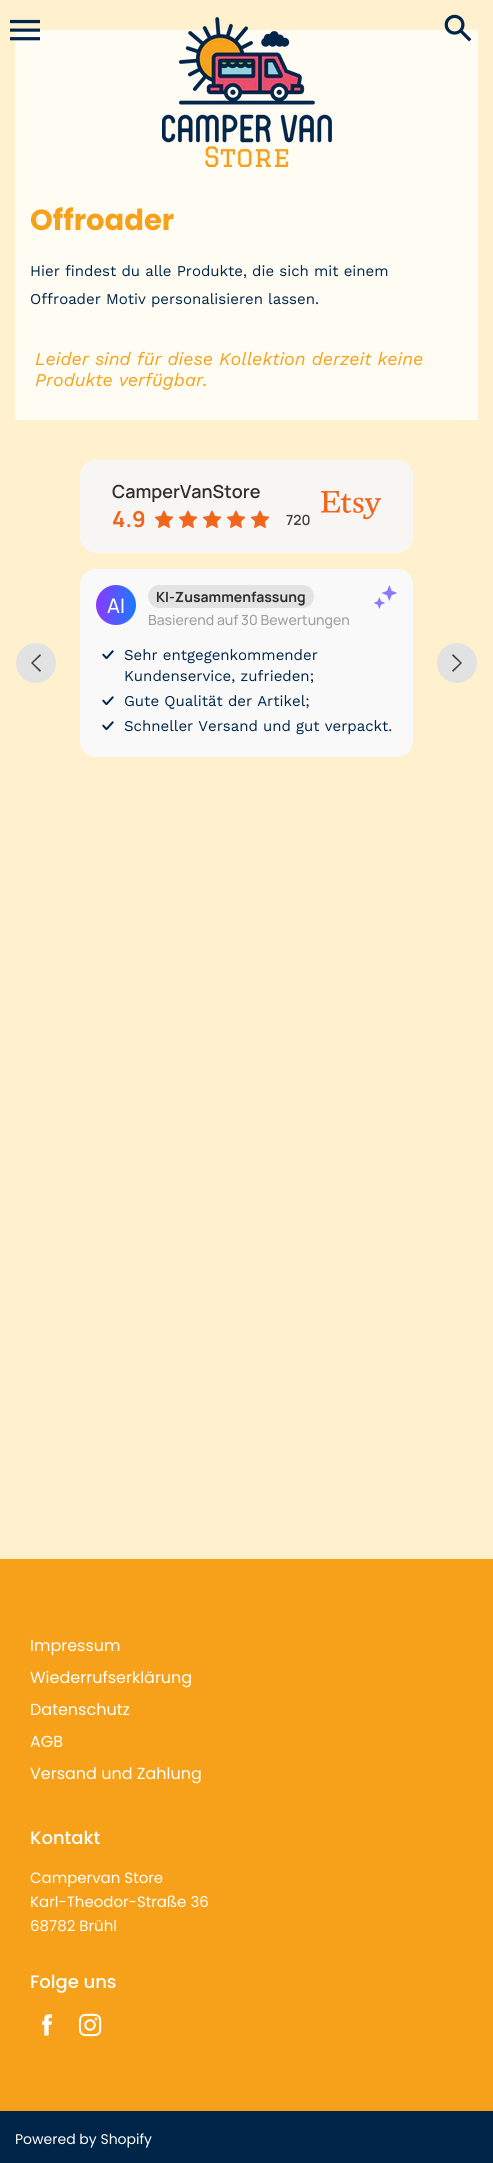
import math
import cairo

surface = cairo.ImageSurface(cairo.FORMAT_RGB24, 493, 2163)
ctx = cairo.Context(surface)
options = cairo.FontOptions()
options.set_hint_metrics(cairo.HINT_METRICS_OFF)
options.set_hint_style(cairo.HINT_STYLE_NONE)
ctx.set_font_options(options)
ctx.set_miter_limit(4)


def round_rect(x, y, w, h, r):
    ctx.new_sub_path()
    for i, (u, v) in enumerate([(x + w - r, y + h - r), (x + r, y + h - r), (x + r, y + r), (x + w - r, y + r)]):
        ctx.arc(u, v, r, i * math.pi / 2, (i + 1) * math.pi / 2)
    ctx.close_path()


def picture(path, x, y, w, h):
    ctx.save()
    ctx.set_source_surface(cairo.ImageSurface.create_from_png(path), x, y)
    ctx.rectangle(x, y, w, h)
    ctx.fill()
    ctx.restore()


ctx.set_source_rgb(1, 0.945, 0.808)
ctx.paint()
ctx.set_source_rgb(1, 0.988, 0.957)
ctx.rectangle(15, 30, 463, 390)
ctx.fill()
ctx.select_font_face("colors")
ctx.set_font_size(30)
ctx.set_source_rgb(0, 0.145, 0.282)
ctx.move_to(10, 47)
ctx.show_text("1")
picture("img1.png", 162, 17, 170, 150)
ctx.move_to(443, 45)
ctx.show_text("2")
ctx.select_font_face("Poppins", cairo.FONT_SLANT_NORMAL, cairo.FONT_WEIGHT_BOLD)
ctx.set_font_size(29)
ctx.set_source_rgb(0.965, 0.631, 0.102)
ctx.move_to(30, 230)
ctx.show_text("Offroader")
ctx.select_font_face("Work Sans")
ctx.set_font_size(15)
ctx.set_source_rgb(0, 0.145, 0.282)
ctx.move_to(30, 276)
ctx.show_text("Hier findest du alle Produkte, die sich mit einem")
ctx.move_to(30, 304)
ctx.show_text("Offroader Motiv personalisieren lassen.")
ctx.select_font_face("Work Sans", cairo.FONT_SLANT_ITALIC)
ctx.set_font_size(18)
ctx.set_source_rgb(0.965, 0.631, 0.102)
ctx.move_to(35, 365)
ctx.show_text("Leider sind für diese Kollektion derzeit keine")
ctx.move_to(35, 386)
ctx.show_text("Produkte verfügbar.")
ctx.set_source_rgb(0.965, 0.961, 0.957)
round_rect(80, 460, 333, 93, 16)
ctx.fill()
ctx.save()
ctx.rectangle(112, 480, 201, 22)
ctx.clip()
ctx.select_font_face("Manrope SemiBold")
ctx.set_source_rgb(0.18, 0.18, 0.18)
ctx.move_to(112, 498)
ctx.show_text("CamperVanStore")
ctx.restore()
ctx.select_font_face("Manrope", cairo.FONT_SLANT_NORMAL, cairo.FONT_WEIGHT_BOLD)
ctx.set_font_size(22)
ctx.set_source_rgb(0.945, 0.396, 0.114)
ctx.move_to(112, 527)
ctx.show_text("4.9")
picture("img2.png", 154, 510, 20, 18)
picture("img2.png", 178, 510, 20, 18)
picture("img2.png", 202, 510, 20, 18)
picture("img2.png", 226, 510, 20, 18)
picture("img2.png", 250, 510, 20, 18)
ctx.select_font_face("Manrope SemiBold")
ctx.set_font_size(14)
ctx.set_source_rgb(0.251, 0.251, 0.251)
ctx.move_to(286, 525)
ctx.show_text("720")
picture("img3.png", 321, 490, 60, 30)
ctx.set_source_rgb(0.886, 0.886, 0.886)
ctx.arc(36, 663, 20, 0, 2 * math.pi)
ctx.fill()
ctx.set_source_rgb(0.251, 0.251, 0.251)
ctx.new_path()
ctx.move_to(41, 670.5)
ctx.line_to(40, 672)
ctx.line_to(31, 663)
ctx.line_to(40, 654)
ctx.line_to(41, 655.5)
ctx.line_to(33, 663)
ctx.close_path()
ctx.fill()
ctx.set_source_rgb(0.973, 0.973, 0.973)
round_rect(80, 569, 333, 188, 16)
ctx.fill()
gradient = cairo.LinearGradient(96, 605, 136, 605)
gradient.add_color_stop_rgba(0, 0.553, 0.22, 1, 1)
gradient.add_color_stop_rgba(1, 0.098, 0.482, 1, 1)
ctx.set_source(gradient)
ctx.arc(116, 605, 20, 0, 2 * math.pi)
ctx.fill()
ctx.select_font_face("Manrope Medium")
ctx.set_font_size(20)
ctx.set_source_rgb(1, 1, 1)
ctx.move_to(107, 613)
ctx.show_text("AI")
ctx.set_source_rgb(0.89, 0.89, 0.89)
round_rect(148, 585, 166, 23, 11.5)
ctx.fill()
ctx.select_font_face("Manrope", cairo.FONT_SLANT_NORMAL, cairo.FONT_WEIGHT_BOLD)
ctx.set_font_size(14)
ctx.set_source_rgb(0.18, 0.18, 0.18)
ctx.move_to(156, 602)
ctx.show_text("KI-Zusammenfassung")
ctx.select_font_face("Manrope Medium")
ctx.set_source_rgb(0.624, 0.624, 0.624)
ctx.move_to(148, 625)
ctx.show_text("Basierend auf 30 Bewertungen")
picture("img4.png", 374, 585, 23, 24)
picture("img5.png", 102, 650, 12, 10)
ctx.select_font_face("Work Sans")
ctx.set_font_size(15)
ctx.set_source_rgb(0, 0.145, 0.282)
ctx.move_to(124, 660)
ctx.show_text("Sehr entgegenkommender")
ctx.move_to(124, 681)
ctx.show_text("Kundenservice, zufrieden;")
picture("img5.png", 102, 696, 12, 10)
ctx.move_to(124, 706)
ctx.show_text("Gute Qualität der Artikel;")
picture("img5.png", 102, 721, 12, 10)
ctx.move_to(124, 731)
ctx.show_text("Schneller Versand und gut verpackt.")
ctx.set_source_rgb(0.886, 0.886, 0.886)
ctx.new_path()
ctx.arc(457, 663, 20, 0, 2 * math.pi)
ctx.fill()
ctx.set_source_rgb(0.251, 0.251, 0.251)
ctx.new_path()
ctx.move_to(452, 655.5)
ctx.line_to(453, 654)
ctx.line_to(462, 663)
ctx.line_to(453, 672)
ctx.line_to(452, 670.5)
ctx.line_to(460, 663)
ctx.close_path()
ctx.fill()
ctx.set_source_rgb(0.965, 0.631, 0.102)
ctx.rectangle(0, 1559, 493, 552)
ctx.fill()
ctx.select_font_face("Poppins")
ctx.set_font_size(16)
ctx.set_source_rgb(1, 1, 1)
ctx.move_to(30, 1651)
ctx.show_text("Impressum")
ctx.move_to(30, 1683)
ctx.show_text("Wiederrufserklärung")
ctx.move_to(30, 1715)
ctx.show_text("Datenschutz")
ctx.move_to(30, 1747)
ctx.show_text("AGB")
ctx.move_to(30, 1779)
ctx.show_text("Versand und Zahlung")
ctx.select_font_face("Poppins Medium")
ctx.set_font_size(18)
ctx.move_to(30, 1844)
ctx.show_text("Kontakt")
ctx.select_font_face("Poppins")
ctx.set_font_size(15)
ctx.move_to(30, 1883)
ctx.show_text("Campervan Store")
ctx.move_to(30, 1907)
ctx.show_text("Karl-Theodor-Straße 36")
ctx.move_to(30, 1931)
ctx.show_text("68782 Brühl")
ctx.select_font_face("Poppins Medium")
ctx.set_font_size(18)
ctx.move_to(30, 1988)
ctx.show_text("Folge uns")
picture("img6.png", 42, 2014, 10, 22)
picture("img7.png", 78, 2013, 24, 24)
ctx.set_source_rgb(0, 0.145, 0.282)
ctx.rectangle(0, 2111, 493, 52)
ctx.fill()
ctx.select_font_face("Poppins")
ctx.set_font_size(14)
ctx.set_source_rgb(1, 1, 1)
ctx.move_to(15, 2144)
ctx.show_text("Powered by Shopify")
surface.write_to_png("page.png")
